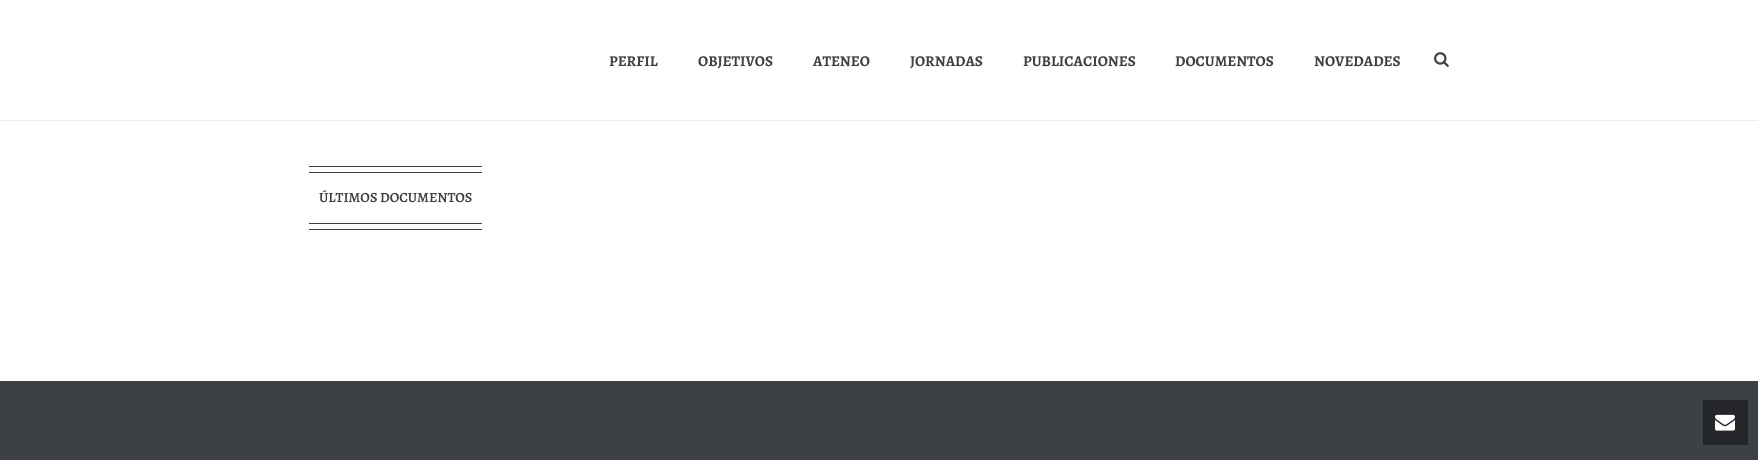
import math
import cairo

surface = cairo.ImageSurface(cairo.FORMAT_RGB24, 1758, 460)
ctx = cairo.Context(surface)
options = cairo.FontOptions()
options.set_hint_metrics(cairo.HINT_METRICS_OFF)
options.set_hint_style(cairo.HINT_STYLE_NONE)
ctx.set_font_options(options)
ctx.set_miter_limit(4)


def picture(path, x, y, w, h):
    ctx.save()
    ctx.set_source_surface(cairo.ImageSurface.create_from_png(path), x, y)
    ctx.rectangle(x, y, w, h)
    ctx.fill()
    ctx.restore()


ctx.set_source_rgb(1, 1, 1)
ctx.paint()
ctx.set_source_rgb(0.929, 0.929, 0.929)
ctx.rectangle(0, 120, 1758, 1)
ctx.fill()
ctx.select_font_face("Alegreya", cairo.FONT_SLANT_NORMAL, cairo.FONT_WEIGHT_BOLD)
ctx.set_font_size(15)
ctx.set_source_rgb(0.251, 0.251, 0.251)
ctx.move_to(609, 66)
ctx.show_text("PERFIL")
ctx.move_to(698, 66)
ctx.show_text("OBJETIVOS")
ctx.move_to(813, 66)
ctx.show_text("ATENEO")
ctx.move_to(910, 66)
ctx.show_text("JORNADAS")
ctx.move_to(1023, 66)
ctx.show_text("PUBLICACIONES")
ctx.move_to(1175, 66)
ctx.show_text("DOCUMENTOS")
ctx.move_to(1314, 66)
ctx.show_text("NOVEDADES")
picture("img1.png", 1434, 52, 15, 15)
ctx.rectangle(309, 166, 173, 1)
ctx.fill()
ctx.rectangle(309, 172, 173, 1)
ctx.fill()
ctx.select_font_face("Alegreya SemiBold")
ctx.set_font_size(14)
ctx.move_to(319, 202)
ctx.show_text("ÚLTIMOS DOCUMENTOS")
ctx.rectangle(309, 223, 173, 1)
ctx.fill()
ctx.rectangle(309, 229, 173, 1)
ctx.fill()
ctx.set_source_rgb(0.239, 0.251, 0.271)
ctx.rectangle(0, 381, 1758, 79)
ctx.fill()
ctx.set_source_rgb(0.145, 0.149, 0.161)
ctx.rectangle(1703, 400, 45, 45)
ctx.fill()
picture("img2.png", 1715, 414, 20, 17)
surface.write_to_png("page.png")
